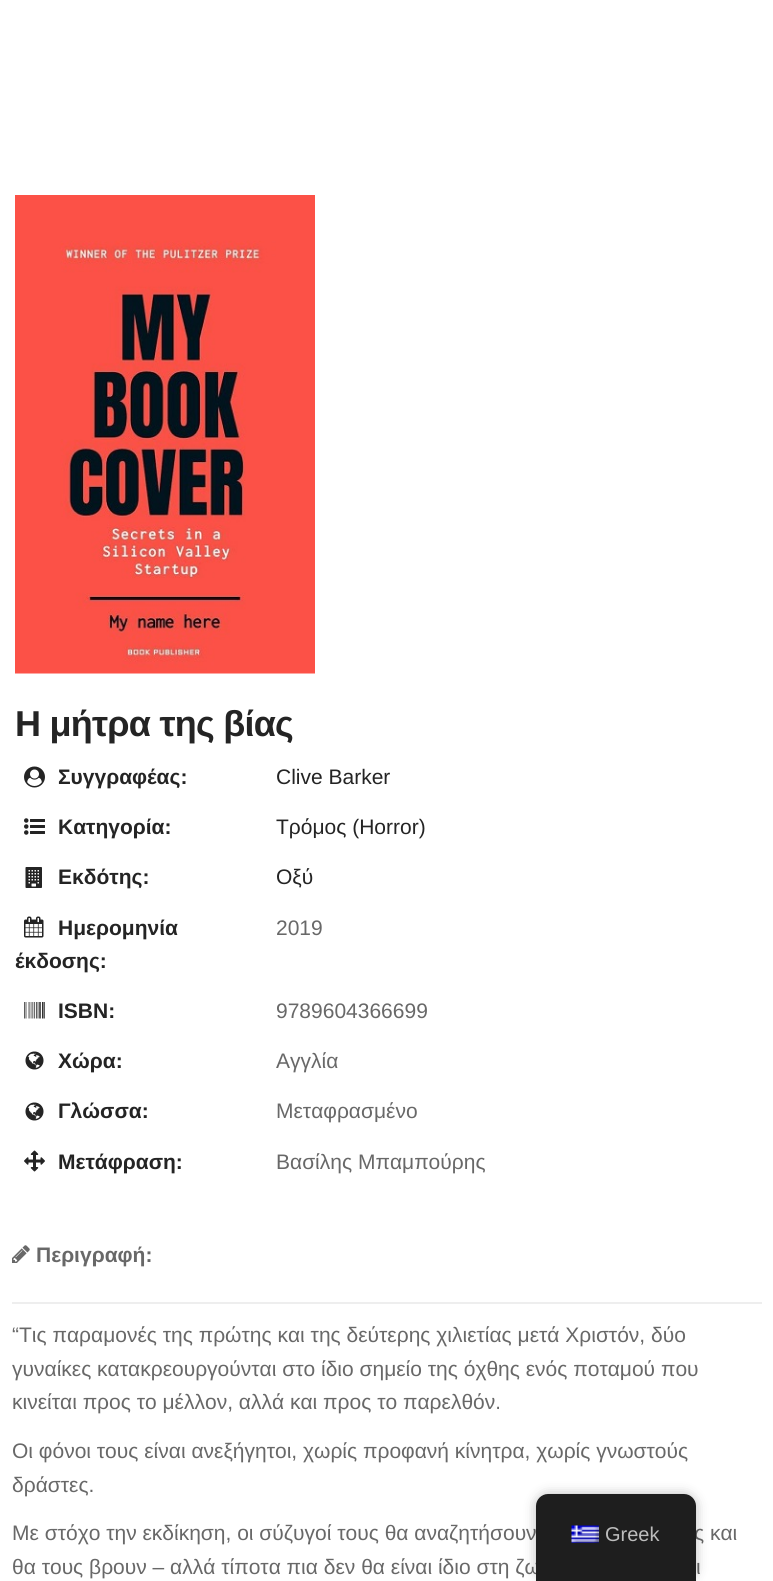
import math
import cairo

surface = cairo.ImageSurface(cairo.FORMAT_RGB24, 773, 1581)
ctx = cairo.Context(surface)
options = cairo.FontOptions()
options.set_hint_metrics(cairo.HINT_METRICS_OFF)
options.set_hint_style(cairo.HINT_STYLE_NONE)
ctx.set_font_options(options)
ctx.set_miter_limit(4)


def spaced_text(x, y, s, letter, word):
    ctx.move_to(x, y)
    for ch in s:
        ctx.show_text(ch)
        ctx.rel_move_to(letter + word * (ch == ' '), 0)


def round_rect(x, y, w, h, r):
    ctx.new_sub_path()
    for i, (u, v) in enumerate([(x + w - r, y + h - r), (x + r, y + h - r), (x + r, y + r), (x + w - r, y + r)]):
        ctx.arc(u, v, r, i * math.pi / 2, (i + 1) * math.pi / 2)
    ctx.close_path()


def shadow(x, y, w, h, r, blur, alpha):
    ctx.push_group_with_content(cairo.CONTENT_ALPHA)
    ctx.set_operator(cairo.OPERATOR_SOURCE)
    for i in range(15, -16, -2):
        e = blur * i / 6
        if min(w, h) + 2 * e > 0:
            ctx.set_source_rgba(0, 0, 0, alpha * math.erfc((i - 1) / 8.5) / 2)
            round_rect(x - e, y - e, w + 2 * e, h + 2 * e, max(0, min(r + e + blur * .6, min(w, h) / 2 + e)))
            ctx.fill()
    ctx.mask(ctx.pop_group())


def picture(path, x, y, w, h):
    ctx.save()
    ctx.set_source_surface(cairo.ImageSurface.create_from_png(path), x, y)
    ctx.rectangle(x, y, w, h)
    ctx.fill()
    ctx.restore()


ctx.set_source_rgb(1, 1, 1)
ctx.paint()
picture("img1.png", 15, 195, 300, 479)
ctx.select_font_face("Liberation Sans", cairo.FONT_SLANT_NORMAL, cairo.FONT_WEIGHT_BOLD)
ctx.set_font_size(36)
ctx.set_source_rgb(0.141, 0.141, 0.141)
spaced_text(15, 736, "Η μήτρα της βίας", -0.75, 0)
picture("img2.png", 24, 766, 21, 22)
ctx.set_font_size(21)
ctx.move_to(58, 784)
ctx.show_text("Συγγραφέας:")
ctx.select_font_face("Liberation Sans")
ctx.move_to(276, 784)
ctx.show_text("Clive Barker")
picture("img3.png", 24, 818, 21, 17)
ctx.select_font_face("Liberation Sans", cairo.FONT_SLANT_NORMAL, cairo.FONT_WEIGHT_BOLD)
ctx.move_to(58, 834)
ctx.show_text("Κατηγορία:")
ctx.select_font_face("Liberation Sans")
ctx.move_to(276, 834)
ctx.show_text("Τρόμος (Horror)")
picture("img4.png", 25, 867, 17, 21)
ctx.select_font_face("Liberation Sans", cairo.FONT_SLANT_NORMAL, cairo.FONT_WEIGHT_BOLD)
ctx.move_to(58, 884)
ctx.show_text("Εκδότης:")
ctx.select_font_face("Liberation Sans")
ctx.move_to(276, 884)
ctx.show_text("Οξύ")
picture("img5.png", 24, 916, 20, 22)
ctx.select_font_face("Liberation Sans", cairo.FONT_SLANT_NORMAL, cairo.FONT_WEIGHT_BOLD)
ctx.move_to(58, 935)
ctx.show_text("Ημερομηνία")
ctx.move_to(15, 968)
ctx.show_text("έκδοσης:")
ctx.select_font_face("Liberation Sans")
ctx.set_source_rgb(0.408, 0.408, 0.408)
ctx.move_to(276, 935)
ctx.show_text("2019")
picture("img6.png", 24, 1002, 21, 17)
ctx.select_font_face("Liberation Sans", cairo.FONT_SLANT_NORMAL, cairo.FONT_WEIGHT_BOLD)
ctx.set_source_rgb(0.141, 0.141, 0.141)
ctx.move_to(58, 1018)
ctx.show_text("ISBN:")
ctx.select_font_face("Liberation Sans")
ctx.set_source_rgb(0.408, 0.408, 0.408)
ctx.move_to(276, 1018)
ctx.show_text("9789604366699")
picture("img7.png", 25, 1051, 19, 19)
ctx.select_font_face("Liberation Sans", cairo.FONT_SLANT_NORMAL, cairo.FONT_WEIGHT_BOLD)
ctx.set_source_rgb(0.141, 0.141, 0.141)
ctx.move_to(58, 1068)
ctx.show_text("Χώρα:")
ctx.select_font_face("Liberation Sans")
ctx.set_source_rgb(0.408, 0.408, 0.408)
ctx.move_to(276, 1068)
ctx.show_text("Αγγλία")
picture("img7.png", 25, 1102, 19, 19)
ctx.select_font_face("Liberation Sans", cairo.FONT_SLANT_NORMAL, cairo.FONT_WEIGHT_BOLD)
ctx.set_source_rgb(0.141, 0.141, 0.141)
ctx.move_to(58, 1118)
ctx.show_text("Γλώσσα:")
ctx.select_font_face("Liberation Sans")
ctx.set_source_rgb(0.408, 0.408, 0.408)
ctx.move_to(276, 1118)
ctx.show_text("Μεταφρασμένο")
picture("img8.png", 24, 1150, 21, 22)
ctx.select_font_face("Liberation Sans", cairo.FONT_SLANT_NORMAL, cairo.FONT_WEIGHT_BOLD)
ctx.set_source_rgb(0.141, 0.141, 0.141)
ctx.move_to(58, 1169)
ctx.show_text("Μετάφραση:")
ctx.select_font_face("Liberation Sans")
ctx.set_source_rgb(0.408, 0.408, 0.408)
ctx.move_to(276, 1169)
ctx.show_text("Βασίλης Μπαμπούρης")
picture("img9.png", 12, 1245, 18, 18)
ctx.select_font_face("Liberation Sans", cairo.FONT_SLANT_NORMAL, cairo.FONT_WEIGHT_BOLD)
ctx.move_to(36, 1262)
ctx.show_text("Περιγραφή:")
ctx.set_source_rgb(0.933, 0.933, 0.933)
ctx.rectangle(12, 1302, 750, 2)
ctx.fill()
ctx.select_font_face("Liberation Sans")
ctx.set_source_rgb(0.408, 0.408, 0.408)
ctx.move_to(12, 1342)
ctx.show_text("“Τις παραμονές της πρώτης και της δεύτερης χιλιετίας μετά Χριστόν, δύο")
ctx.move_to(12, 1376)
ctx.show_text("γυναίκες κατακρεουργούνται στο ίδιο σημείο της όχθης ενός ποταμού που")
ctx.move_to(12, 1409)
ctx.show_text("κινείται προς το μέλλον, αλλά και προς το παρελθόν.")
ctx.move_to(12, 1458)
ctx.show_text("Οι φόνοι τους είναι ανεξήγητοι, χωρίς προφανή κίνητρα, χωρίς γνωστούς")
ctx.move_to(12, 1492)
ctx.show_text("δράστες.")
ctx.move_to(12, 1540)
ctx.show_text("Με στόχο την εκδίκηση, οι σύζυγοί τους θα αναζητήσουν")
ctx.move_to(694, 1540)
ctx.show_text("ς και")
ctx.move_to(12, 1574)
ctx.show_text("θα τους βρουν – αλλά τίποτα πια δεν θα είναι ίδιο στη ζω")
ctx.move_to(696, 1574)
ctx.show_text("ι")
ctx.set_source_rgb(0, 0, 0)
shadow(536, 1494, 160, 87, 12, 6, 0.25)
ctx.set_source_rgb(0.118, 0.118, 0.118)
ctx.new_path()
ctx.move_to(548, 1494)
ctx.line_to(684, 1494)
ctx.curve_to(690.5, 1494, 696, 1499.5, 696, 1506)
ctx.line_to(696, 1581)
ctx.line_to(536, 1581)
ctx.line_to(536, 1506)
ctx.curve_to(536, 1499.5, 541.5, 1494, 548, 1494)
ctx.close_path()
ctx.fill()
picture("img10.png", 571, 1525, 28, 18)
ctx.set_font_size(20)
ctx.set_source_rgb(0.741, 0.741, 0.741)
ctx.move_to(605, 1541)
ctx.show_text("Greek")
surface.write_to_png("page.png")
